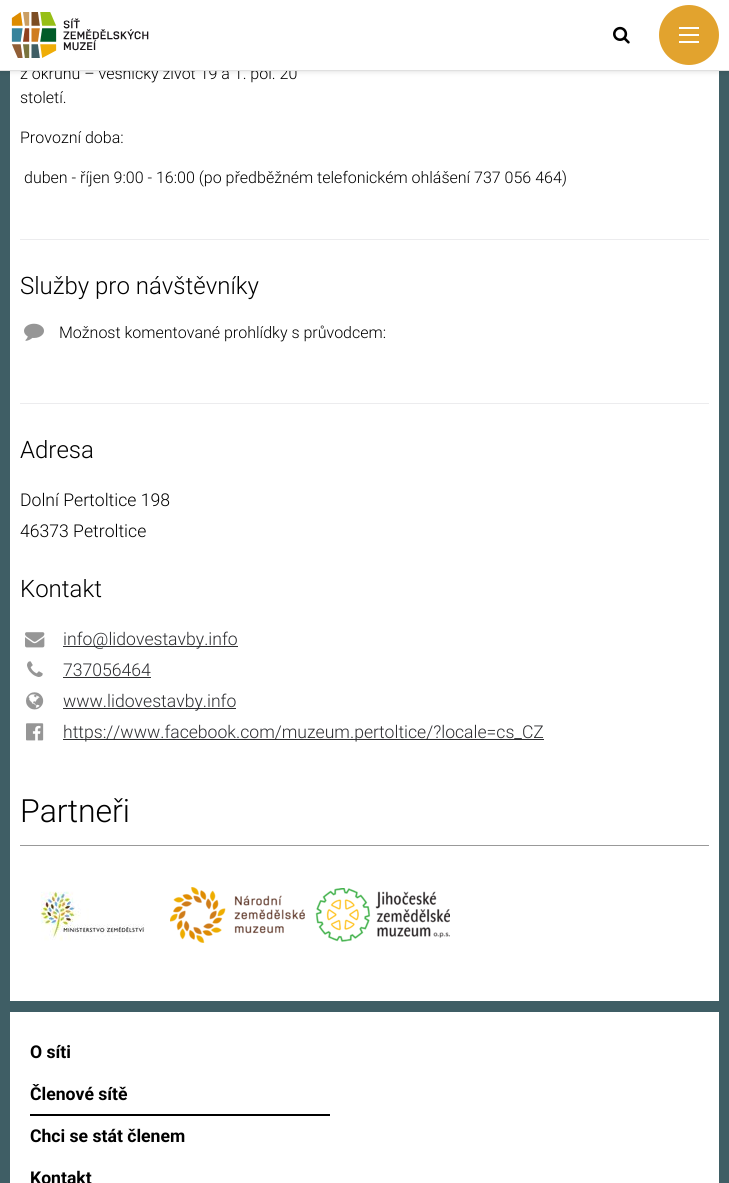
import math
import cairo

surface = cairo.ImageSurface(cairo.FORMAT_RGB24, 729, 1183)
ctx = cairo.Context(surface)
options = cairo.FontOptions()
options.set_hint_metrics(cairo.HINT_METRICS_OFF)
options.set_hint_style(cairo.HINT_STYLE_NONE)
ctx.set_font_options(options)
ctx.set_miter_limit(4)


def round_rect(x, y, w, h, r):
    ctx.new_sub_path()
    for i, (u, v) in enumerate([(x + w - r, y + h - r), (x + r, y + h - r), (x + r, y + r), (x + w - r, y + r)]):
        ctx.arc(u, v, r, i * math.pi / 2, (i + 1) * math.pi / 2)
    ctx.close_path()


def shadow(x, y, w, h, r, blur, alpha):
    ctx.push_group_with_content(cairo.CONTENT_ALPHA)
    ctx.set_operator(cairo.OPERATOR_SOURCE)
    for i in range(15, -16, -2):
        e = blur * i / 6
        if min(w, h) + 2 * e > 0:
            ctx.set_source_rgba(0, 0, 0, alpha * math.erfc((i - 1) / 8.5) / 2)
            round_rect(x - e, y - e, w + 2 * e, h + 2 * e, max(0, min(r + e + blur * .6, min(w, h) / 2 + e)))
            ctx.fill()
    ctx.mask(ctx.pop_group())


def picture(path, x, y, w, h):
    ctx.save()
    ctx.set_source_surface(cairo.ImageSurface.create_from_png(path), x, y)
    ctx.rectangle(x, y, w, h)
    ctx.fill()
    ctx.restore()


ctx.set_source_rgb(0.247, 0.369, 0.396)
ctx.paint()
ctx.set_source_rgb(1, 1, 1)
ctx.rectangle(10, 71, 709, 930)
ctx.fill()
ctx.set_source_rgb(0, 0, 0)
shadow(0, 0, 729, 71, 0, 3, 0.15)
ctx.select_font_face("Roboto Light")
ctx.set_font_size(16)
ctx.set_source_rgb(0, 0, 0)
ctx.move_to(20, 79)
ctx.show_text("z okruhu – vesnický život 19 a 1. pol. 20")
ctx.set_source_rgb(1, 1, 1)
ctx.rectangle(0, 0, 729, 70)
ctx.fill()
ctx.set_source_rgb(0.878, 0.878, 0.878)
ctx.rectangle(0, 70, 729, 1)
ctx.fill()
picture("img1.png", 11, 12, 138, 46)
picture("img2.png", 613, 26, 17, 18)
ctx.set_source_rgb(0.886, 0.639, 0.18)
ctx.arc(689, 35, 30, 0, 2 * math.pi)
ctx.fill()
ctx.set_source_rgb(1, 1, 1)
ctx.rectangle(679, 27, 20, 2)
ctx.fill()
ctx.rectangle(679, 34, 20, 2)
ctx.fill()
ctx.rectangle(679, 41, 20, 2)
ctx.fill()
ctx.set_source_rgb(0, 0, 0)
ctx.move_to(20, 103)
ctx.show_text("století.")
ctx.move_to(20, 143)
ctx.show_text("Provozní doba:")
ctx.move_to(24, 183)
ctx.show_text("duben - říjen 9:00 - 16:00 (po předběžném telefonickém ohlášení 737 056 464)")
ctx.set_source_rgb(0.925, 0.925, 0.933)
ctx.rectangle(20, 239, 689, 1)
ctx.fill()
ctx.set_font_size(24)
ctx.set_source_rgb(0, 0, 0)
ctx.move_to(20, 294)
ctx.show_text("Služby pro návštěvníky")
picture("img3.png", 24, 323, 20, 18)
ctx.set_font_size(16)
ctx.move_to(59, 338)
ctx.show_text("Možnost komentované prohlídky s průvodcem:")
ctx.set_source_rgb(0.925, 0.925, 0.933)
ctx.rectangle(20, 403, 689, 1)
ctx.fill()
ctx.set_font_size(24)
ctx.set_source_rgb(0, 0, 0)
ctx.move_to(20, 458)
ctx.show_text("Adresa")
ctx.set_font_size(17.6)
ctx.move_to(20, 506)
ctx.show_text("Dolní Pertoltice 198")
ctx.move_to(20, 537)
ctx.show_text("46373 Petroltice")
ctx.set_font_size(24)
ctx.move_to(20, 597)
ctx.show_text("Kontakt")
picture("img4.png", 25, 632, 20, 16)
ctx.set_source_rgb(0.176, 0.18, 0.192)
ctx.rectangle(63, 646, 175, 1)
ctx.fill()
ctx.set_font_size(17.6)
ctx.move_to(63, 645)
ctx.show_text("info@lidovestavby.info")
picture("img5.png", 27, 661, 16, 16)
ctx.move_to(63, 676)
ctx.show_text("737056464")
ctx.rectangle(63, 677, 88, 1)
ctx.fill()
picture("img6.png", 26, 692, 18, 18)
ctx.rectangle(63, 708, 173, 1)
ctx.fill()
ctx.move_to(63, 707)
ctx.show_text("www.lidovestavby.info")
picture("img7.png", 26, 723, 18, 18)
ctx.rectangle(63, 739, 481, 1)
ctx.fill()
ctx.move_to(63, 738)
ctx.show_text("https://www.facebook.com/muzeum.pertoltice/?locale=cs_CZ")
ctx.set_source_rgb(0.6, 0.6, 0.6)
ctx.rectangle(20, 845, 689, 1)
ctx.fill()
ctx.set_font_size(32)
ctx.set_source_rgb(0, 0, 0)
ctx.move_to(20, 822)
ctx.show_text("Partneři")
picture("img8.png", 40, 891, 105, 50)
picture("img9.png", 170, 887, 135, 56)
picture("img10.png", 315, 888, 135, 54)
ctx.set_source_rgb(1, 1, 1)
ctx.rectangle(10, 1012, 709, 171)
ctx.fill()
ctx.select_font_face("Roboto", cairo.FONT_SLANT_NORMAL, cairo.FONT_WEIGHT_BOLD)
ctx.set_font_size(17.6)
ctx.set_source_rgb(0, 0, 0)
ctx.move_to(30, 1058)
ctx.show_text("O síti")
ctx.rectangle(30, 1114, 300, 2)
ctx.fill()
ctx.move_to(30, 1100)
ctx.show_text("Členové sítě")
ctx.move_to(30, 1142)
ctx.show_text("Chci se stát členem")
ctx.move_to(30, 1184)
ctx.show_text("Kontakt")
surface.write_to_png("page.png")
